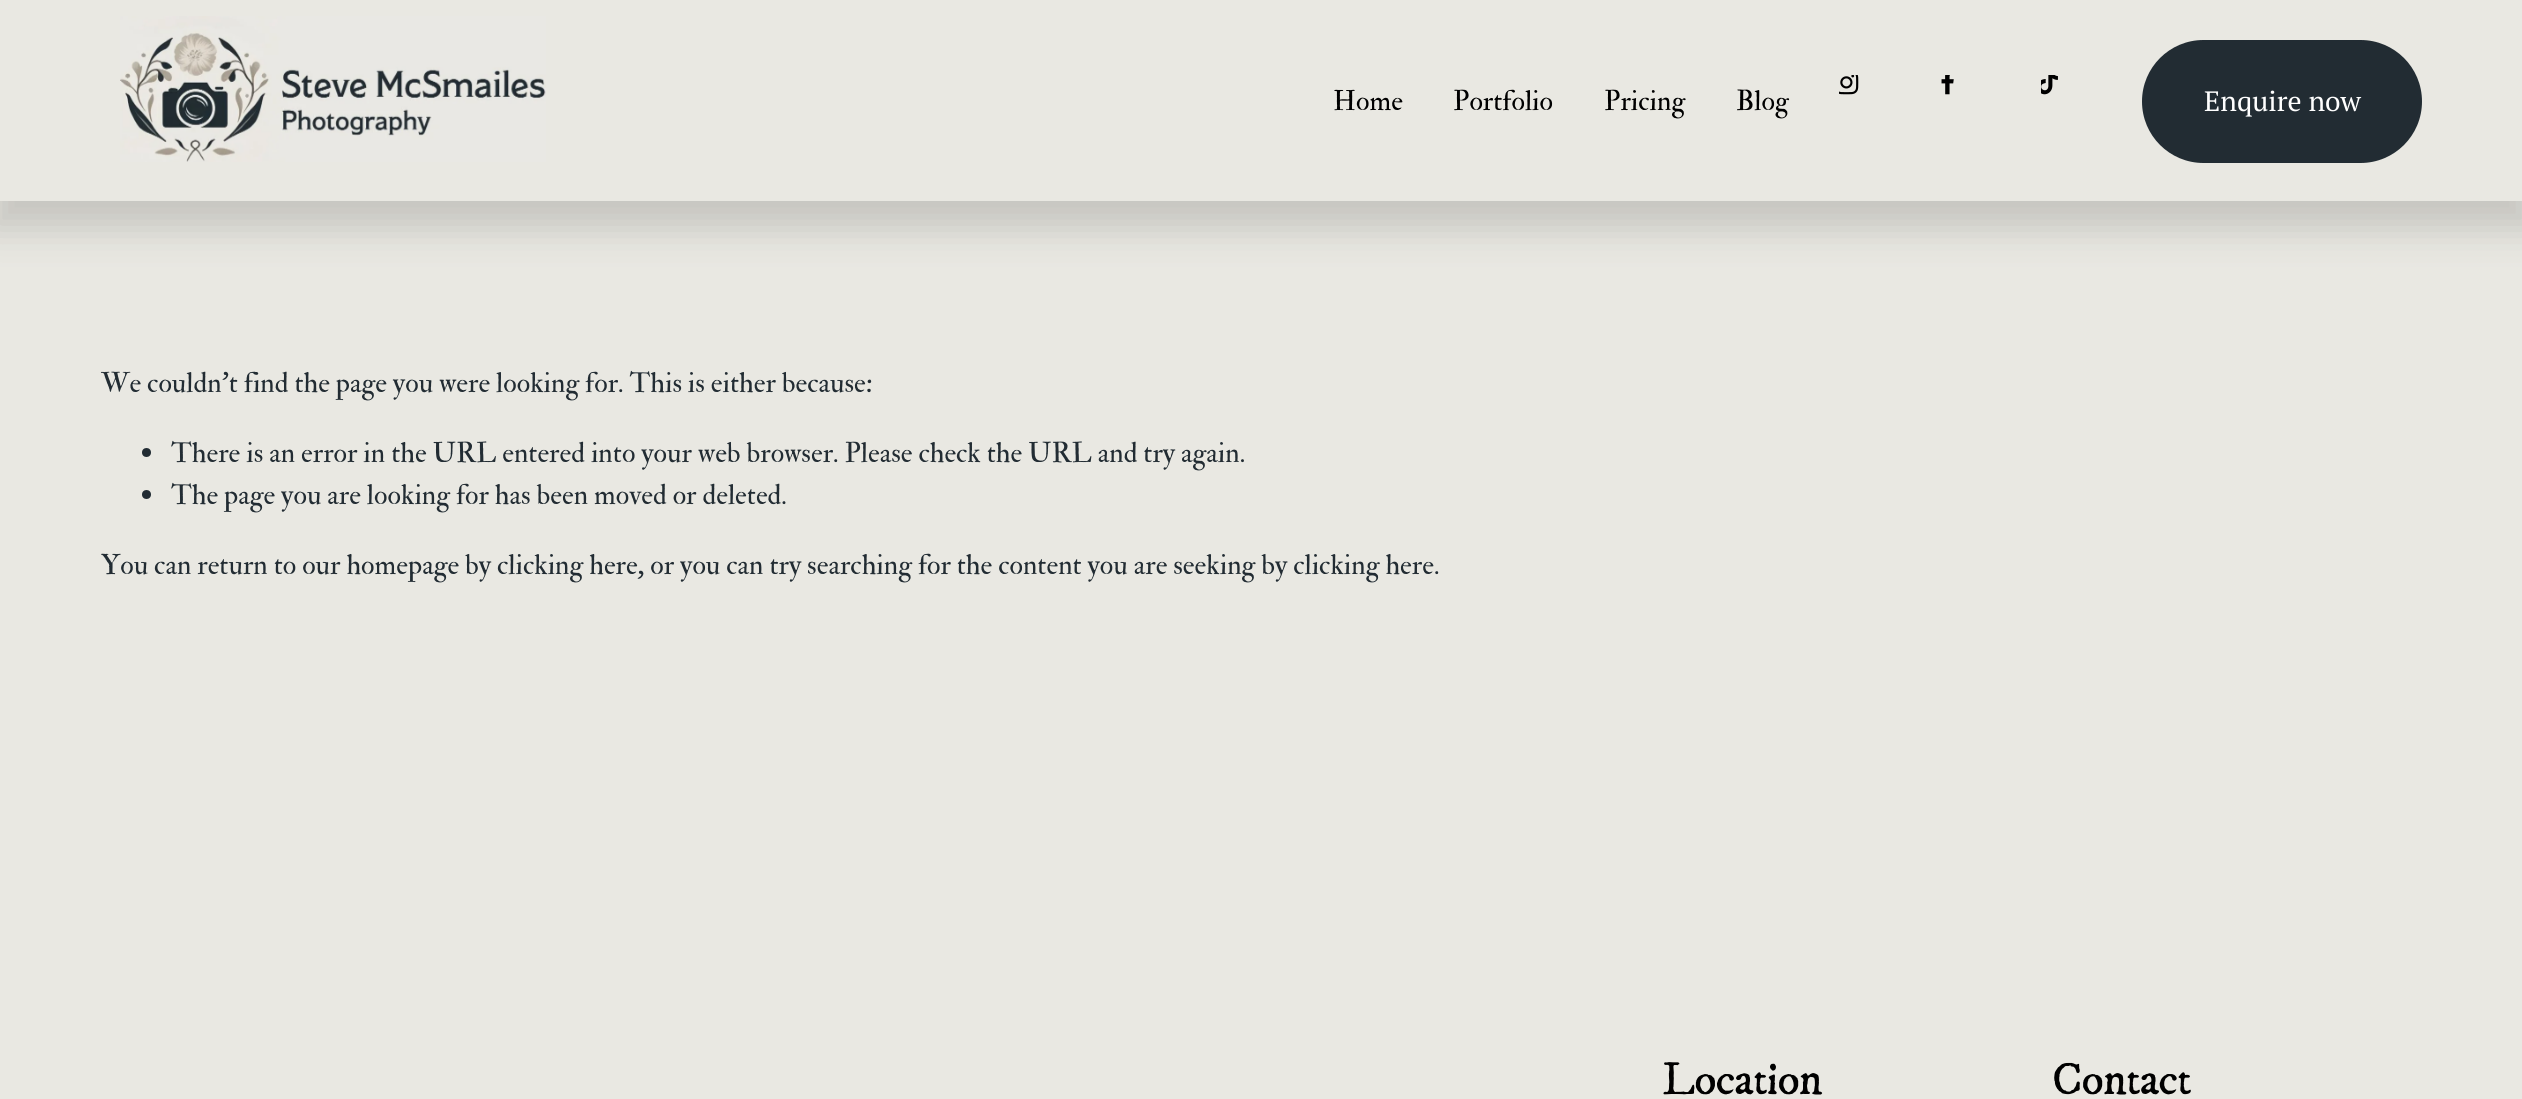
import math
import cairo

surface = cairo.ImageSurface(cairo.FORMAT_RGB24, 2522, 1099)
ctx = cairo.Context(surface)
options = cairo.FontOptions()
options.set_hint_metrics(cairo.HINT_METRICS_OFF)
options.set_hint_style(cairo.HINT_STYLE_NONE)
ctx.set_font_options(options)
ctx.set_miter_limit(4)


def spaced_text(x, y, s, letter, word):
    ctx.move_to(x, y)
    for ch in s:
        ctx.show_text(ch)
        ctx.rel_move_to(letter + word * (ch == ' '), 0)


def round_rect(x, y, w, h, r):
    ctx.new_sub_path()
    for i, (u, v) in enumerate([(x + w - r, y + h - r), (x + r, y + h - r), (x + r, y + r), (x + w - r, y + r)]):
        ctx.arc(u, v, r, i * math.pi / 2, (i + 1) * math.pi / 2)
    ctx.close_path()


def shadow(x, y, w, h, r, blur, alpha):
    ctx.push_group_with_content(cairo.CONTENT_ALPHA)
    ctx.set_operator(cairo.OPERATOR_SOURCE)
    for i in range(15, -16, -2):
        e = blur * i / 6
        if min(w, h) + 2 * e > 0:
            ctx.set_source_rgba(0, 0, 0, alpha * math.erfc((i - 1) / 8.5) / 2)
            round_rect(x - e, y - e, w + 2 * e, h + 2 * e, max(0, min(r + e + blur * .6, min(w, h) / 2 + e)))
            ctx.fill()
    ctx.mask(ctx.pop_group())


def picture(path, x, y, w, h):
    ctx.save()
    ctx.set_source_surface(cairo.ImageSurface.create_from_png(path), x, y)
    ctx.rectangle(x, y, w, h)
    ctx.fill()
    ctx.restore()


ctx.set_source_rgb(0.914, 0.91, 0.886)
ctx.paint()
ctx.save()
ctx.rectangle(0, 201, 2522, 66)
ctx.clip()
ctx.set_source_rgb(0.776, 0.773, 0.753)
shadow(-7, 14, 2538, 215, 0, 18.5, 1)
ctx.restore()
picture("img1.png", 120, 16, 426, 146)
ctx.select_font_face("IM FELL Double Pica")
ctx.set_font_size(28)
ctx.set_source_rgb(0, 0, 0)
ctx.move_to(1333, 110)
ctx.show_text("Home")
ctx.move_to(1453, 110)
ctx.show_text("Portfolio")
ctx.move_to(1604, 110)
ctx.show_text("Pricing")
ctx.move_to(1736, 110)
ctx.show_text("Blog")
picture("img2.png", 1839, 75, 20, 20)
picture("img3.png", 1941, 75, 13, 20)
picture("img4.png", 2041, 75, 17, 20)
ctx.set_source_rgb(0.133, 0.173, 0.2)
round_rect(2142, 40, 280, 123, 61.5)
ctx.fill()
ctx.select_font_face("PT Serif")
ctx.set_source_rgb(1, 1, 1)
ctx.move_to(2204, 111)
ctx.show_text("Enquire now")
ctx.select_font_face("IM FELL Double Pica")
ctx.set_source_rgb(0.133, 0.173, 0.2)
ctx.move_to(101, 392)
ctx.show_text("We couldn't find the page you were looking for. This is either because:")
ctx.new_path()
ctx.arc(146.5, 452.5, 4.5, 0, 2 * math.pi)
ctx.fill()
ctx.move_to(171, 462)
ctx.show_text("There is an error in the URL entered into your web browser. Please check the URL and try again.")
ctx.new_path()
ctx.arc(146.5, 494.5, 4.5, 0, 2 * math.pi)
ctx.fill()
ctx.move_to(171, 504)
ctx.show_text("The page you are looking for has been moved or deleted.")
ctx.move_to(101, 574)
ctx.show_text("You can return to our homepage by clicking here, or you can try searching for the content you are seeking by clicking here.")
ctx.select_font_face("IM FELL DW Pica")
ctx.set_font_size(46)
ctx.set_source_rgb(0, 0, 0)
spaced_text(1662, 1094, "Location", -1, 0)
spaced_text(2052, 1094, "Contact", -1, 0)
surface.write_to_png("page.png")
